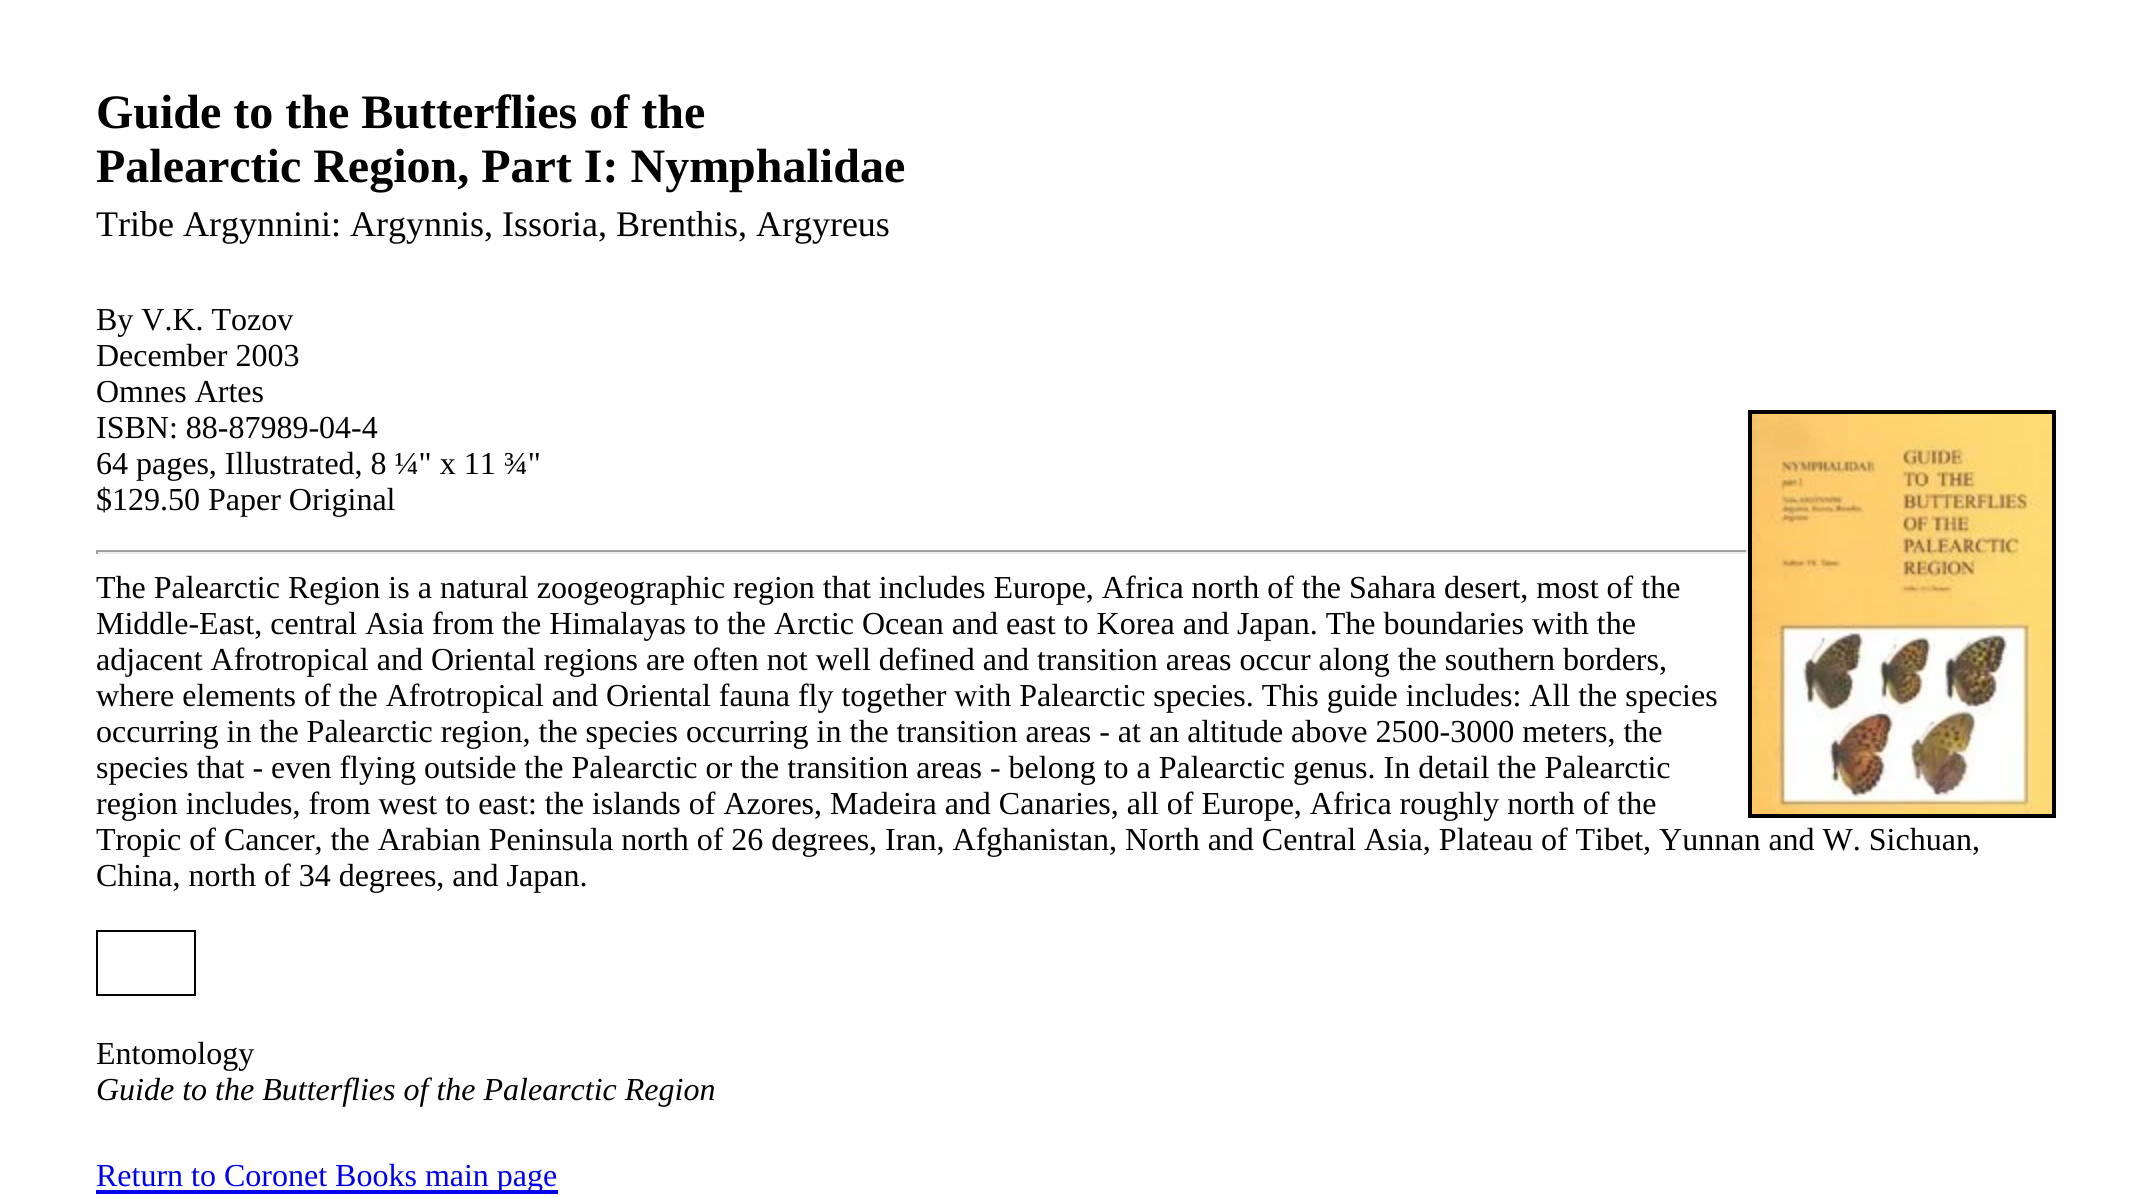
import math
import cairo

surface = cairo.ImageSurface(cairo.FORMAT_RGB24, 2152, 1198)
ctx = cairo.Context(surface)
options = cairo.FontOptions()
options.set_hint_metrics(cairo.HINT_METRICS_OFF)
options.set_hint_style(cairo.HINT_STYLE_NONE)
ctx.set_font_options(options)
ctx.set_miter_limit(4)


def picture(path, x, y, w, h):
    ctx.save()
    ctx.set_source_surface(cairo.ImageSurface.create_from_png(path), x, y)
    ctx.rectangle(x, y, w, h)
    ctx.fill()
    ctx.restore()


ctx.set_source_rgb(1, 1, 1)
ctx.paint()
ctx.select_font_face("Liberation Serif", cairo.FONT_SLANT_NORMAL, cairo.FONT_WEIGHT_BOLD)
ctx.set_font_size(48)
ctx.set_source_rgb(0, 0, 0)
ctx.move_to(96, 128)
ctx.show_text("Guide to the Butterflies of the")
ctx.move_to(96, 182)
ctx.show_text("Palearctic Region, Part I: Nymphalidae")
ctx.select_font_face("Liberation Serif")
ctx.set_font_size(36)
ctx.move_to(96, 236)
ctx.show_text("Tribe Argynnini: Argynnis, Issoria, Brenthis, Argyreus")
ctx.set_font_size(32)
ctx.move_to(96, 330)
ctx.show_text("By V.K. Tozov")
ctx.move_to(96, 366)
ctx.show_text("December 2003")
ctx.move_to(96, 402)
ctx.show_text("Omnes Artes")
ctx.move_to(96, 438)
ctx.show_text("ISBN: 88-87989-04-4")
ctx.rectangle(1750, 412, 304, 404)
ctx.set_line_width(4)
ctx.stroke()
picture("img1.png", 1752, 414, 300, 400)
ctx.move_to(96, 474)
ctx.show_text("64 pages, Illustrated, 8 ¼\" x 11 ¾\"")
ctx.move_to(96, 510)
ctx.show_text("$129.50 Paper Original")
ctx.set_source_rgb(0.624, 0.624, 0.624)
ctx.rectangle(96, 550, 1652, 2)
ctx.fill()
ctx.set_source_rgb(0.933, 0.933, 0.933)
ctx.rectangle(1746, 550, 2, 4)
ctx.fill()
ctx.rectangle(96, 552, 1652, 2)
ctx.fill()
ctx.set_source_rgb(0.624, 0.624, 0.624)
ctx.rectangle(96, 550, 2, 4)
ctx.fill()
ctx.set_source_rgb(0, 0, 0)
ctx.move_to(96, 598)
ctx.show_text("The Palearctic Region is a natural zoogeographic region that includes Europe, Africa north of the Sahara desert, most of the")
ctx.move_to(96, 634)
ctx.show_text("Middle-East, central Asia from the Himalayas to the Arctic Ocean and east to Korea and Japan. The boundaries with the")
ctx.move_to(96, 670)
ctx.show_text("adjacent Afrotropical and Oriental regions are often not well defined and transition areas occur along the southern borders,")
ctx.move_to(96, 706)
ctx.show_text("where elements of the Afrotropical and Oriental fauna fly together with Palearctic species. This guide includes: All the species")
ctx.move_to(96, 742)
ctx.show_text("occurring in the Palearctic region, the species occurring in the transition areas - at an altitude above 2500-3000 meters, the")
ctx.move_to(96, 778)
ctx.show_text("species that - even flying outside the Palearctic or the transition areas - belong to a Palearctic genus. In detail the Palearctic")
ctx.move_to(96, 814)
ctx.show_text("region includes, from west to east: the islands of Azores, Madeira and Canaries, all of Europe, Africa roughly north of the")
ctx.move_to(96, 850)
ctx.show_text("Tropic of Cancer, the Arabian Peninsula north of 26 degrees, Iran, Afghanistan, North and Central Asia, Plateau of Tibet, Yunnan and W. Sichuan,")
ctx.move_to(96, 886)
ctx.show_text("China, north of 34 degrees, and Japan.")
ctx.rectangle(97, 931, 98, 64)
ctx.set_line_width(2)
ctx.stroke()
ctx.move_to(96, 1064)
ctx.show_text("Entomology")
ctx.select_font_face("Liberation Serif", cairo.FONT_SLANT_ITALIC)
ctx.move_to(96, 1100)
ctx.show_text("Guide to the Butterflies of the Palearctic Region")
ctx.set_source_rgb(0, 0, 0.933)
ctx.rectangle(96, 1190, 462, 4)
ctx.fill()
ctx.select_font_face("Liberation Serif")
ctx.move_to(96, 1186)
ctx.show_text("Return to Coronet Books main page")
surface.write_to_png("page.png")
